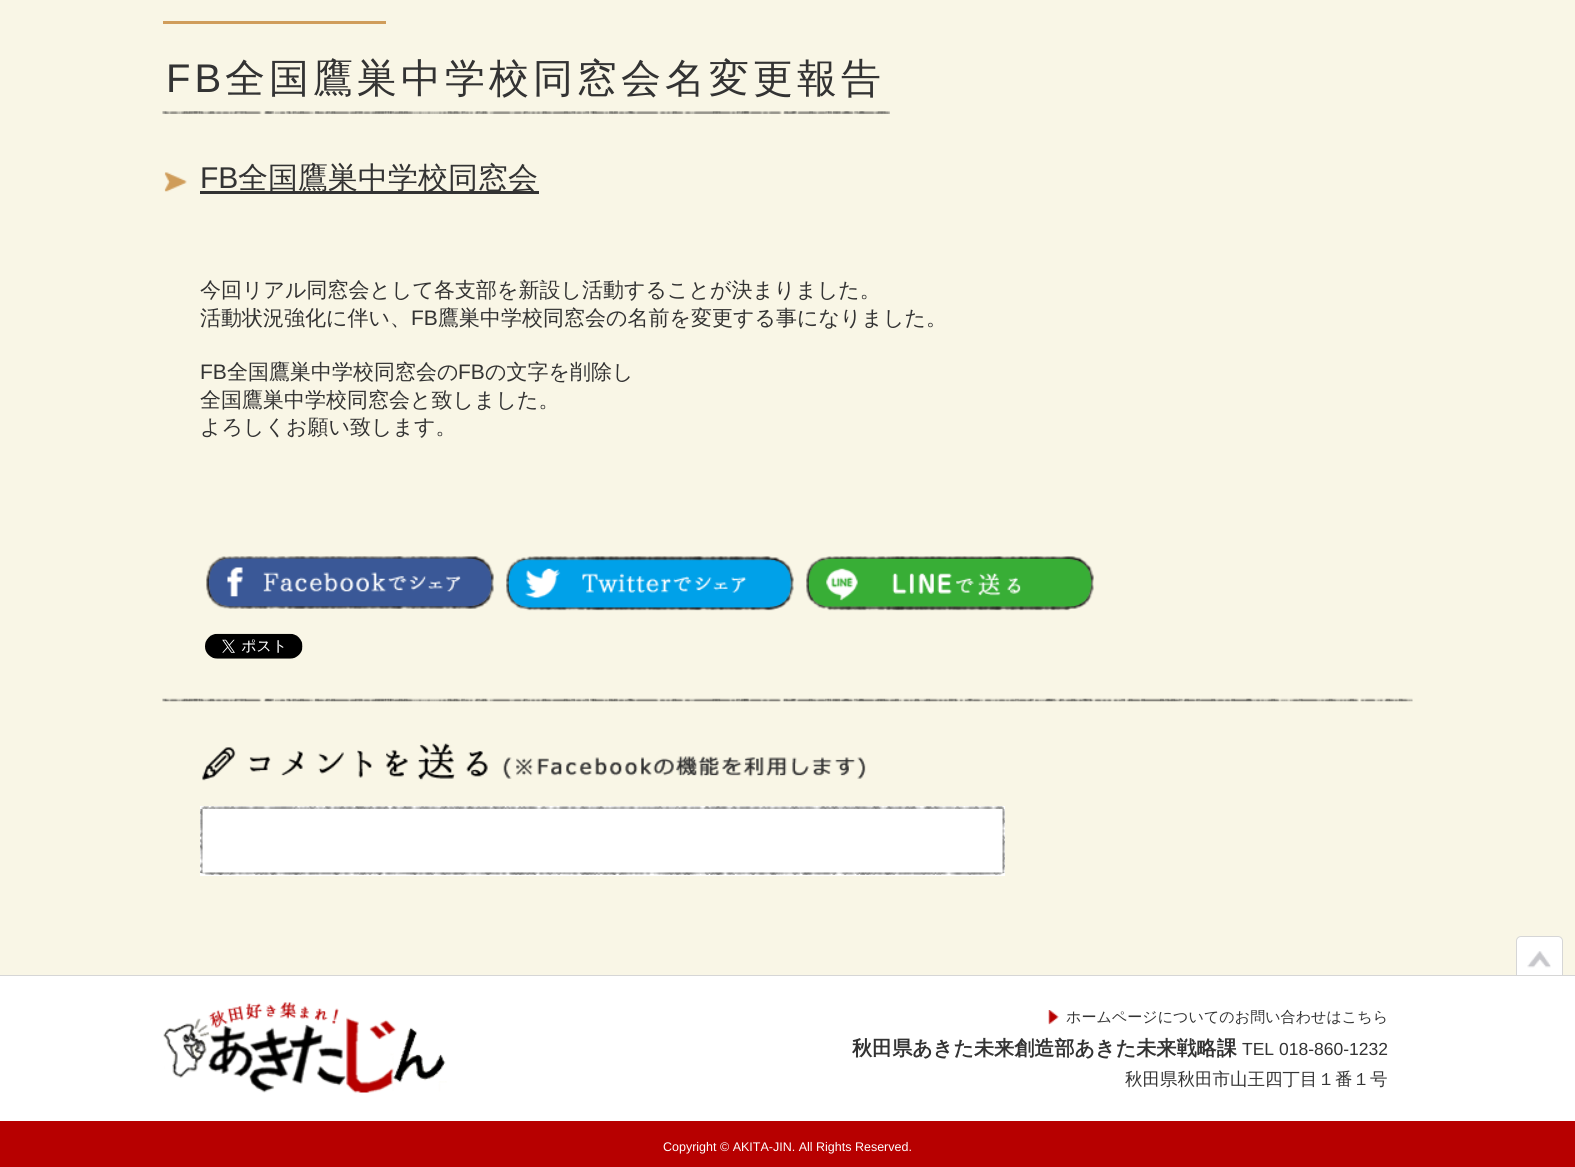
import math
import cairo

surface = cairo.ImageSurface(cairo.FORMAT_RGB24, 1575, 1167)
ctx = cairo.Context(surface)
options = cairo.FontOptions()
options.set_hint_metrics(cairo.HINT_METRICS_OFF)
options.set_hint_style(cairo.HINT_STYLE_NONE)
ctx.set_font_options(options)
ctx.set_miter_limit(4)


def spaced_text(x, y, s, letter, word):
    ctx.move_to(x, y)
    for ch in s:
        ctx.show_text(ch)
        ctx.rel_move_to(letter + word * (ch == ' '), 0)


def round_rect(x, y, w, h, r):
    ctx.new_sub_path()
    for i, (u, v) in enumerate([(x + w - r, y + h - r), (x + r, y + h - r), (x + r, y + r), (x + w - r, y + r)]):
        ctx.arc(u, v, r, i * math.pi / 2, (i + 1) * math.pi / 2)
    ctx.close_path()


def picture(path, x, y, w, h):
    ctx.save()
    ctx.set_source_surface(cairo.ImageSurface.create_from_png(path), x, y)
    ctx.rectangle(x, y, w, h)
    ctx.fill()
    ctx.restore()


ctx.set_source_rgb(0.973, 0.961, 0.902)
ctx.paint()
ctx.set_source_rgb(0.816, 0.616, 0.357)
ctx.rectangle(163, 21, 223, 3)
ctx.fill()
picture("img1.png", 162, 111, 728, 3)
ctx.select_font_face("Liberation Sans")
ctx.set_font_size(40)
ctx.set_source_rgb(0.2, 0.2, 0.2)
spaced_text(166, 92, "FB", 4, 0)
ctx.select_font_face("WenQuanYi Zen Hei Medium")
spaced_text(225, 92, "全国鷹巣中学校同窓会名変更報告", 4, 0)
picture("img2.png", 164, 172, 23, 20)
ctx.select_font_face("Liberation Sans")
ctx.set_font_size(30)
ctx.move_to(200, 188)
ctx.show_text("FB")
ctx.rectangle(200, 191, 339, 3)
ctx.fill()
ctx.select_font_face("WenQuanYi Zen Hei Medium")
ctx.move_to(238, 188)
ctx.show_text("全国鷹巣中学校同窓会")
ctx.set_font_size(21)
ctx.move_to(200, 297)
ctx.show_text("今回リアル同窓会として各支部を新設し活動することが決まりました。")
ctx.move_to(200, 325)
ctx.show_text("活動状況強化に伴い、")
ctx.select_font_face("Liberation Sans")
ctx.move_to(411, 325)
ctx.show_text("FB")
ctx.select_font_face("WenQuanYi Zen Hei Medium")
ctx.move_to(438, 325)
ctx.show_text("鷹巣中学校同窓会の名前を変更する事になりました。")
ctx.select_font_face("Liberation Sans")
ctx.move_to(200, 379)
ctx.show_text("FB")
ctx.select_font_face("WenQuanYi Zen Hei Medium")
ctx.move_to(227, 379)
ctx.show_text("全国鷹巣中学校同窓会の")
ctx.select_font_face("Liberation Sans")
ctx.move_to(458, 379)
ctx.show_text("FB")
ctx.select_font_face("WenQuanYi Zen Hei Medium")
ctx.move_to(485, 379)
ctx.show_text("の文字を削除し")
ctx.move_to(200, 407)
ctx.show_text("全国鷹巣中学校同窓会と致しました。")
ctx.move_to(200, 434)
ctx.show_text("よろしくお願い致します。")
picture("img3.png", 206, 556, 288, 53)
picture("img4.png", 506, 556, 288, 55)
picture("img5.png", 806, 556, 288, 55)
picture("img6.png", 205, 633, 98, 26)
picture("img7.png", 162, 698, 1251, 4)
picture("img8.png", 202, 743, 664, 38)
ctx.set_source_rgb(1, 1, 1)
ctx.rectangle(200, 806, 805, 70)
ctx.fill()
picture("img9.png", 200, 809, 805, 64)
picture("img10.png", 201, 806, 803, 3)
picture("img11.png", 201, 872, 803, 3)
round_rect(1516.5, 936.5, 46, 46, 4.5)
ctx.fill_preserve()
ctx.set_source_rgb(0.839, 0.839, 0.839)
ctx.set_line_width(1)
ctx.stroke()
picture("img12.png", 1527, 951, 24, 17)
ctx.set_source_rgb(1, 1, 1)
ctx.rectangle(0, 976, 1575, 145)
ctx.fill()
ctx.set_source_rgb(0.839, 0.839, 0.839)
ctx.rectangle(0, 975, 1575, 1)
ctx.fill()
picture("img13.png", 163, 1002, 284, 91)
picture("img14.png", 1048, 1010, 11, 15)
ctx.set_font_size(15.05)
ctx.set_source_rgb(0.2, 0.2, 0.2)
ctx.move_to(1066, 1022)
ctx.show_text("ホームページについてのお問い合わせはこちら")
ctx.select_font_face("WenQuanYi Zen Hei", cairo.FONT_SLANT_NORMAL, cairo.FONT_WEIGHT_BOLD)
ctx.set_font_size(20.1)
ctx.move_to(852, 1055)
ctx.show_text("秋田県あきた未来創造部あきた未来戦略課")
ctx.select_font_face("Liberation Sans")
ctx.set_font_size(17.5)
ctx.move_to(1242, 1055)
ctx.show_text("TEL 018-860-1232")
ctx.select_font_face("WenQuanYi Zen Hei Medium")
ctx.move_to(1125, 1085)
ctx.show_text("秋田県秋田市山王四丁目１番１号")
ctx.set_source_rgb(0.718, 0, 0)
ctx.rectangle(0, 1121, 1575, 46)
ctx.fill()
ctx.select_font_face("Liberation Sans")
ctx.set_font_size(12.5)
ctx.set_source_rgb(1, 1, 1)
ctx.move_to(663, 1151)
ctx.show_text("Copyright © AKITA-JIN. All Rights Reserved.")
surface.write_to_png("page.png")
